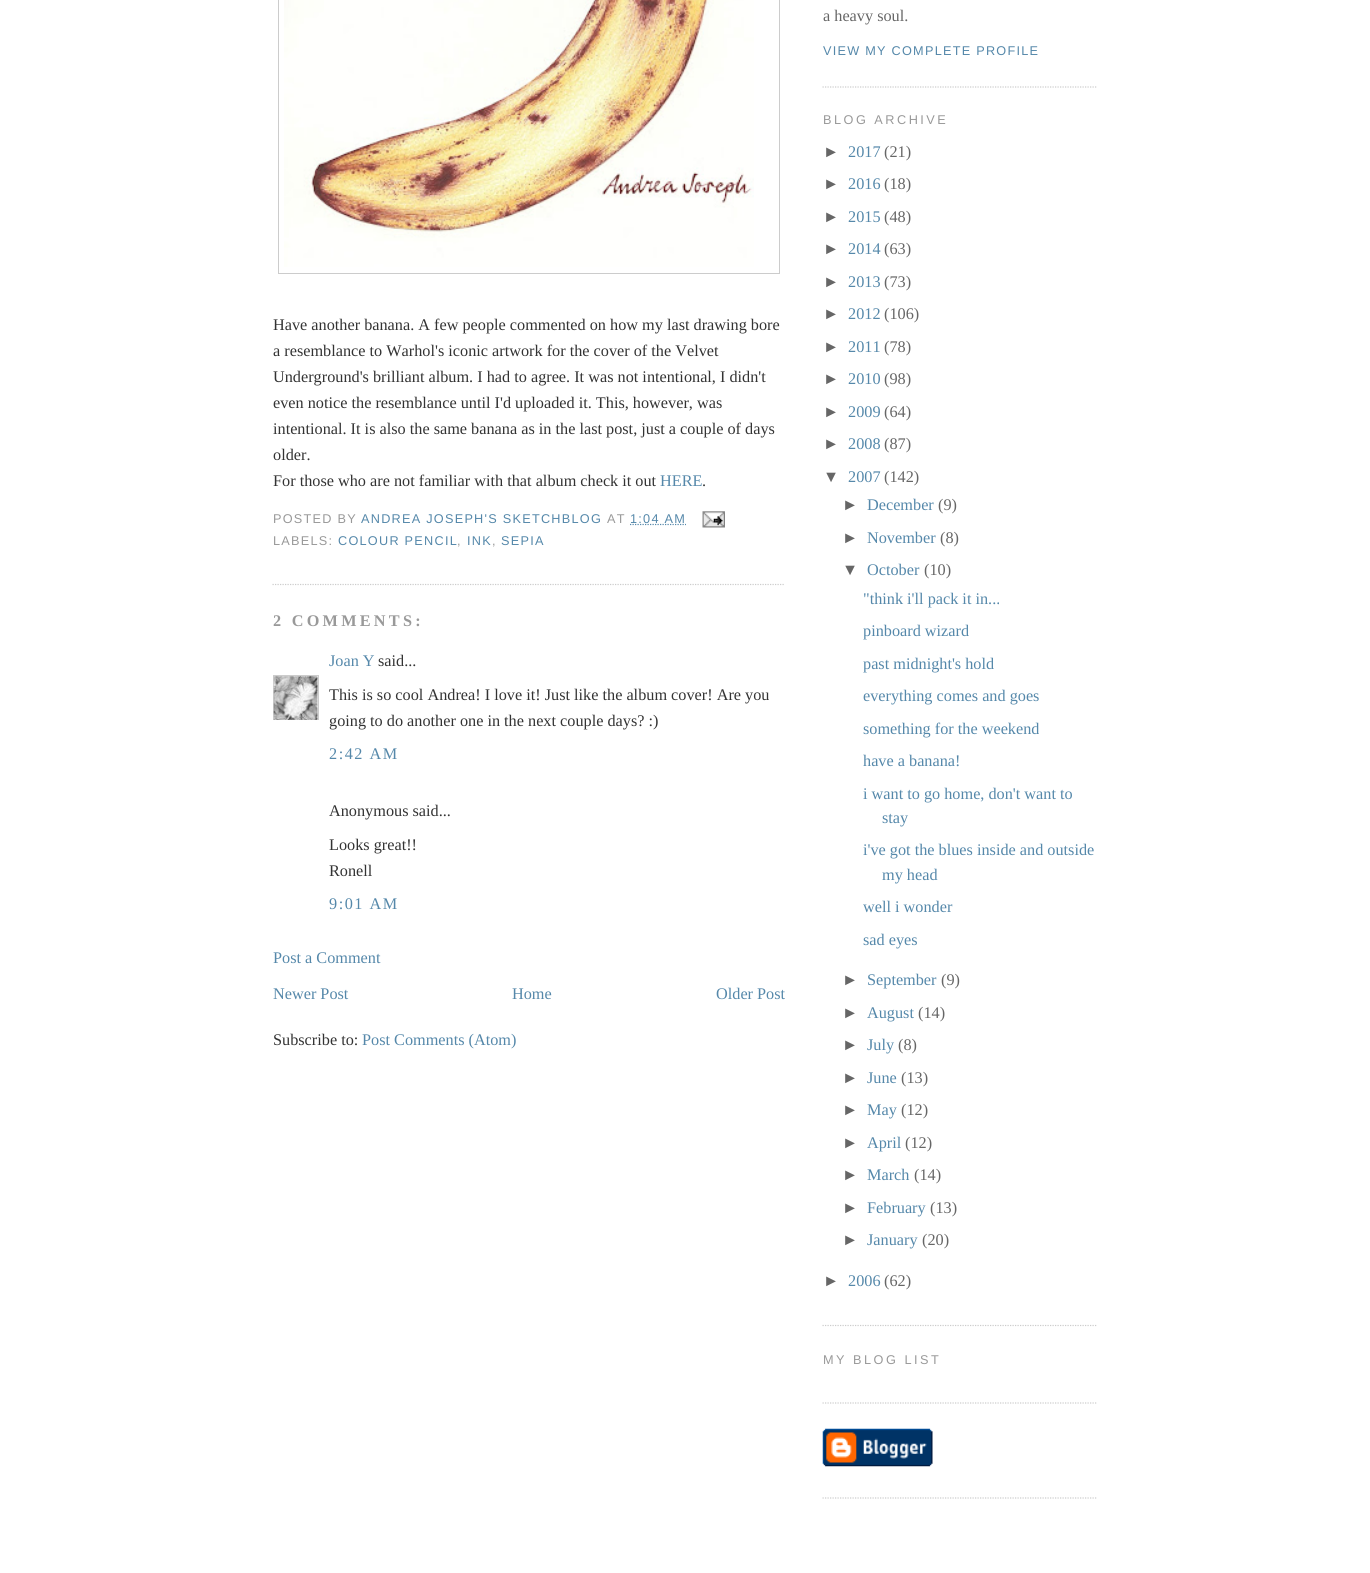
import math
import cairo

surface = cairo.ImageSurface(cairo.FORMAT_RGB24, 1370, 1573)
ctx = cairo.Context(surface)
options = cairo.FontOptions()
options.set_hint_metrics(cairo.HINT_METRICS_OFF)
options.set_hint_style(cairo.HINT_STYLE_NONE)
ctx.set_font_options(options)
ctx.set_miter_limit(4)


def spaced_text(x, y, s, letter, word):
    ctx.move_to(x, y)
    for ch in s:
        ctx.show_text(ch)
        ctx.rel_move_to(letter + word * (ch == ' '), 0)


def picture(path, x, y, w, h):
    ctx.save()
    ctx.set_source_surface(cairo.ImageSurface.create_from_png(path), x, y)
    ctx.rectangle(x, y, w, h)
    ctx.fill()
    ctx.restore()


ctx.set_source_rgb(1, 1, 1)
ctx.paint()
ctx.new_path()
ctx.move_to(272.5, 584.5)
ctx.line_to(785, 584.5)
ctx.set_source_rgb(0.8, 0.8, 0.8)
ctx.set_line_width(1.2)
ctx.set_dash([1.25, 1.25])
ctx.stroke()
ctx.rectangle(278.5, -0.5, 501, 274)
ctx.set_line_width(1)
ctx.set_dash([])
ctx.stroke()
picture("img1.png", 284, 0, 470, 267)
ctx.select_font_face("Liberation Serif")
ctx.set_font_size(16.25)
ctx.set_source_rgb(0.2, 0.2, 0.2)
ctx.move_to(273, 330)
ctx.show_text("Have another banana. A few people commented on how my last drawing bore")
ctx.move_to(273, 356)
ctx.show_text("a resemblance to Warhol's iconic artwork for the cover of the Velvet")
ctx.move_to(273, 382)
ctx.show_text("Underground's brilliant album. I had to agree. It was not intentional, I didn't")
ctx.move_to(273, 408)
ctx.show_text("even notice the resemblance until I'd uploaded it. This, however, was")
ctx.move_to(273, 434)
ctx.show_text("intentional. It is also the same banana as in the last post, just a couple of days")
ctx.move_to(273, 460)
ctx.show_text("older.")
ctx.move_to(273, 486)
ctx.show_text("For those who are not familiar with that album check it out")
ctx.set_source_rgb(0.333, 0.533, 0.667)
ctx.move_to(660, 486)
ctx.show_text("HERE")
ctx.set_source_rgb(0.2, 0.2, 0.2)
ctx.move_to(702, 486)
ctx.show_text(".")
ctx.select_font_face("Liberation Sans")
ctx.set_font_size(12.7)
ctx.set_source_rgb(0.6, 0.6, 0.6)
spaced_text(273, 523, "POSTED BY", 1.25, 0)
ctx.set_source_rgb(0.333, 0.533, 0.667)
spaced_text(361, 523, "ANDREA JOSEPH'S SKETCHBLOG", 1.25, 0)
ctx.set_source_rgb(0.6, 0.6, 0.6)
spaced_text(607, 523, "AT", 1.25, 0)
ctx.new_path()
ctx.move_to(630, 524.5)
ctx.line_to(686, 524.5)
ctx.set_source_rgb(0.333, 0.533, 0.667)
ctx.set_line_width(1.2)
ctx.set_dash([1.25, 1.25])
ctx.stroke()
spaced_text(630, 523, "1:04 AM", 1.25, 0)
picture("img2.png", 702, 511, 23, 17)
ctx.set_source_rgb(0.6, 0.6, 0.6)
spaced_text(273, 545, "LABELS:", 1.25, 0)
ctx.set_source_rgb(0.333, 0.533, 0.667)
spaced_text(338, 545, "COLOUR PENCIL", 1.25, 0)
ctx.set_source_rgb(0.6, 0.6, 0.6)
spaced_text(457, 545, ",", 1.25, 0)
ctx.set_source_rgb(0.333, 0.533, 0.667)
spaced_text(467, 545, "INK", 1.25, 0)
ctx.set_source_rgb(0.6, 0.6, 0.6)
spaced_text(492, 545, ",", 1.25, 0)
ctx.set_source_rgb(0.333, 0.533, 0.667)
spaced_text(501, 545, "SEPIA", 1.25, 0)
ctx.select_font_face("Liberation Serif", cairo.FONT_SLANT_NORMAL, cairo.FONT_WEIGHT_BOLD)
ctx.set_font_size(16.25)
ctx.set_source_rgb(0.6, 0.6, 0.6)
spaced_text(273, 626, "2 COMMENTS:", 3.25, 0)
ctx.select_font_face("Liberation Serif")
ctx.set_source_rgb(0.333, 0.533, 0.667)
ctx.move_to(329, 666)
ctx.show_text("Joan Y")
ctx.set_source_rgb(0.2, 0.2, 0.2)
ctx.move_to(378, 666)
ctx.show_text("said...")
ctx.save()
ctx.rectangle(273, 675, 46, 45)
ctx.clip()
ctx.rectangle(273.5, 675.5, 45, 45)
ctx.set_source_rgb(0.8, 0.8, 0.8)
ctx.set_line_width(1)
ctx.set_dash([])
ctx.stroke()
ctx.restore()
picture("img3.png", 273, 676, 45, 44)
ctx.move_to(329, 700)
ctx.show_text("This is so cool Andrea! I love it! Just like the album cover! Are you")
ctx.move_to(329, 726)
ctx.show_text("going to do another one in the next couple days? :)")
ctx.set_source_rgb(0.333, 0.533, 0.667)
spaced_text(329, 759, "2:42 AM", 1.5, 0)
ctx.set_source_rgb(0.2, 0.2, 0.2)
ctx.move_to(329, 816)
ctx.show_text("Anonymous said...")
ctx.move_to(329, 850)
ctx.show_text("Looks great!!")
ctx.move_to(329, 876)
ctx.show_text("Ronell")
ctx.set_source_rgb(0.333, 0.533, 0.667)
spaced_text(329, 909, "9:01 AM", 1.5, 0)
ctx.move_to(273, 963)
ctx.show_text("Post a Comment")
ctx.move_to(273, 999)
ctx.show_text("Newer Post")
ctx.move_to(512, 999)
ctx.show_text("Home")
ctx.move_to(716, 999)
ctx.show_text("Older Post")
ctx.set_source_rgb(0.2, 0.2, 0.2)
ctx.move_to(273, 1045)
ctx.show_text("Subscribe to:")
ctx.set_source_rgb(0.333, 0.533, 0.667)
ctx.move_to(362, 1045)
ctx.show_text("Post Comments (Atom)")
ctx.new_path()
ctx.move_to(822.5, 87)
ctx.line_to(1097.5, 87)
ctx.set_source_rgb(0.8, 0.8, 0.8)
ctx.stroke()
ctx.set_source_rgb(0.4, 0.4, 0.4)
ctx.move_to(823, 21)
ctx.show_text("a heavy soul.")
ctx.select_font_face("Liberation Sans")
ctx.set_font_size(12.7)
ctx.set_source_rgb(0.333, 0.533, 0.667)
spaced_text(823, 55, "VIEW MY COMPLETE PROFILE", 1.25, 0)
ctx.new_path()
ctx.move_to(822.5, 1325.5)
ctx.line_to(1097.5, 1325.5)
ctx.set_source_rgb(0.8, 0.8, 0.8)
ctx.stroke()
ctx.set_source_rgb(0.6, 0.6, 0.6)
spaced_text(823, 124, "BLOG ARCHIVE", 2.5, 0)
ctx.set_font_size(16.25)
ctx.set_source_rgb(0.4, 0.4, 0.4)
ctx.move_to(823, 157)
ctx.show_text("►")
ctx.select_font_face("Liberation Serif")
ctx.set_source_rgb(0.333, 0.533, 0.667)
ctx.move_to(848, 157)
ctx.show_text("2017")
ctx.set_source_rgb(0.4, 0.4, 0.4)
ctx.move_to(884, 157)
ctx.show_text("(21)")
ctx.select_font_face("Liberation Sans")
ctx.move_to(823, 189)
ctx.show_text("►")
ctx.select_font_face("Liberation Serif")
ctx.set_source_rgb(0.333, 0.533, 0.667)
ctx.move_to(848, 189)
ctx.show_text("2016")
ctx.set_source_rgb(0.4, 0.4, 0.4)
ctx.move_to(884, 189)
ctx.show_text("(18)")
ctx.select_font_face("Liberation Sans")
ctx.move_to(823, 222)
ctx.show_text("►")
ctx.select_font_face("Liberation Serif")
ctx.set_source_rgb(0.333, 0.533, 0.667)
ctx.move_to(848, 222)
ctx.show_text("2015")
ctx.set_source_rgb(0.4, 0.4, 0.4)
ctx.move_to(884, 222)
ctx.show_text("(48)")
ctx.select_font_face("Liberation Sans")
ctx.move_to(823, 254)
ctx.show_text("►")
ctx.select_font_face("Liberation Serif")
ctx.set_source_rgb(0.333, 0.533, 0.667)
ctx.move_to(848, 254)
ctx.show_text("2014")
ctx.set_source_rgb(0.4, 0.4, 0.4)
ctx.move_to(884, 254)
ctx.show_text("(63)")
ctx.select_font_face("Liberation Sans")
ctx.move_to(823, 287)
ctx.show_text("►")
ctx.select_font_face("Liberation Serif")
ctx.set_source_rgb(0.333, 0.533, 0.667)
ctx.move_to(848, 287)
ctx.show_text("2013")
ctx.set_source_rgb(0.4, 0.4, 0.4)
ctx.move_to(884, 287)
ctx.show_text("(73)")
ctx.select_font_face("Liberation Sans")
ctx.move_to(823, 319)
ctx.show_text("►")
ctx.select_font_face("Liberation Serif")
ctx.set_source_rgb(0.333, 0.533, 0.667)
ctx.move_to(848, 319)
ctx.show_text("2012")
ctx.set_source_rgb(0.4, 0.4, 0.4)
ctx.move_to(884, 319)
ctx.show_text("(106)")
ctx.select_font_face("Liberation Sans")
ctx.move_to(823, 352)
ctx.show_text("►")
ctx.select_font_face("Liberation Serif")
ctx.set_source_rgb(0.333, 0.533, 0.667)
ctx.move_to(848, 352)
ctx.show_text("2011")
ctx.set_source_rgb(0.4, 0.4, 0.4)
ctx.move_to(884, 352)
ctx.show_text("(78)")
ctx.select_font_face("Liberation Sans")
ctx.move_to(823, 384)
ctx.show_text("►")
ctx.select_font_face("Liberation Serif")
ctx.set_source_rgb(0.333, 0.533, 0.667)
ctx.move_to(848, 384)
ctx.show_text("2010")
ctx.set_source_rgb(0.4, 0.4, 0.4)
ctx.move_to(884, 384)
ctx.show_text("(98)")
ctx.select_font_face("Liberation Sans")
ctx.move_to(823, 417)
ctx.show_text("►")
ctx.select_font_face("Liberation Serif")
ctx.set_source_rgb(0.333, 0.533, 0.667)
ctx.move_to(848, 417)
ctx.show_text("2009")
ctx.set_source_rgb(0.4, 0.4, 0.4)
ctx.move_to(884, 417)
ctx.show_text("(64)")
ctx.select_font_face("Liberation Sans")
ctx.move_to(823, 449)
ctx.show_text("►")
ctx.select_font_face("Liberation Serif")
ctx.set_source_rgb(0.333, 0.533, 0.667)
ctx.move_to(848, 449)
ctx.show_text("2008")
ctx.set_source_rgb(0.4, 0.4, 0.4)
ctx.move_to(884, 449)
ctx.show_text("(87)")
ctx.select_font_face("Liberation Sans")
ctx.move_to(823, 482)
ctx.show_text("▼")
ctx.select_font_face("Liberation Serif")
ctx.set_source_rgb(0.333, 0.533, 0.667)
ctx.move_to(848, 482)
ctx.show_text("2007")
ctx.set_source_rgb(0.4, 0.4, 0.4)
ctx.move_to(884, 482)
ctx.show_text("(142)")
ctx.select_font_face("Liberation Sans")
ctx.move_to(842, 510)
ctx.show_text("►")
ctx.select_font_face("Liberation Serif")
ctx.set_source_rgb(0.333, 0.533, 0.667)
ctx.move_to(867, 510)
ctx.show_text("December")
ctx.set_source_rgb(0.4, 0.4, 0.4)
ctx.move_to(938, 510)
ctx.show_text("(9)")
ctx.select_font_face("Liberation Sans")
ctx.move_to(842, 543)
ctx.show_text("►")
ctx.select_font_face("Liberation Serif")
ctx.set_source_rgb(0.333, 0.533, 0.667)
ctx.move_to(867, 543)
ctx.show_text("November")
ctx.set_source_rgb(0.4, 0.4, 0.4)
ctx.move_to(940, 543)
ctx.show_text("(8)")
ctx.select_font_face("Liberation Sans")
ctx.move_to(842, 575)
ctx.show_text("▼")
ctx.select_font_face("Liberation Serif")
ctx.set_source_rgb(0.333, 0.533, 0.667)
ctx.move_to(867, 575)
ctx.show_text("October")
ctx.set_source_rgb(0.4, 0.4, 0.4)
ctx.move_to(924, 575)
ctx.show_text("(10)")
ctx.set_source_rgb(0.333, 0.533, 0.667)
ctx.move_to(863, 604)
ctx.show_text("\"think i'll pack it in...")
ctx.move_to(863, 636)
ctx.show_text("pinboard wizard")
ctx.move_to(863, 669)
ctx.show_text("past midnight's hold")
ctx.move_to(863, 701)
ctx.show_text("everything comes and goes")
ctx.move_to(863, 734)
ctx.show_text("something for the weekend")
ctx.move_to(863, 766)
ctx.show_text("have a banana!")
ctx.move_to(863, 799)
ctx.show_text("i want to go home, don't want to")
ctx.move_to(882, 823)
ctx.show_text("stay")
ctx.move_to(863, 855)
ctx.show_text("i've got the blues inside and outside")
ctx.move_to(882, 880)
ctx.show_text("my head")
ctx.move_to(863, 912)
ctx.show_text("well i wonder")
ctx.move_to(863, 945)
ctx.show_text("sad eyes")
ctx.select_font_face("Liberation Sans")
ctx.set_source_rgb(0.4, 0.4, 0.4)
ctx.move_to(842, 985)
ctx.show_text("►")
ctx.select_font_face("Liberation Serif")
ctx.set_source_rgb(0.333, 0.533, 0.667)
ctx.move_to(867, 985)
ctx.show_text("September")
ctx.set_source_rgb(0.4, 0.4, 0.4)
ctx.move_to(941, 985)
ctx.show_text("(9)")
ctx.select_font_face("Liberation Sans")
ctx.move_to(842, 1018)
ctx.show_text("►")
ctx.select_font_face("Liberation Serif")
ctx.set_source_rgb(0.333, 0.533, 0.667)
ctx.move_to(867, 1018)
ctx.show_text("August")
ctx.set_source_rgb(0.4, 0.4, 0.4)
ctx.move_to(918, 1018)
ctx.show_text("(14)")
ctx.select_font_face("Liberation Sans")
ctx.move_to(842, 1050)
ctx.show_text("►")
ctx.select_font_face("Liberation Serif")
ctx.set_source_rgb(0.333, 0.533, 0.667)
ctx.move_to(867, 1050)
ctx.show_text("July")
ctx.set_source_rgb(0.4, 0.4, 0.4)
ctx.move_to(898, 1050)
ctx.show_text("(8)")
ctx.select_font_face("Liberation Sans")
ctx.move_to(842, 1083)
ctx.show_text("►")
ctx.select_font_face("Liberation Serif")
ctx.set_source_rgb(0.333, 0.533, 0.667)
ctx.move_to(867, 1083)
ctx.show_text("June")
ctx.set_source_rgb(0.4, 0.4, 0.4)
ctx.move_to(901, 1083)
ctx.show_text("(13)")
ctx.select_font_face("Liberation Sans")
ctx.move_to(842, 1115)
ctx.show_text("►")
ctx.select_font_face("Liberation Serif")
ctx.set_source_rgb(0.333, 0.533, 0.667)
ctx.move_to(867, 1115)
ctx.show_text("May")
ctx.set_source_rgb(0.4, 0.4, 0.4)
ctx.move_to(901, 1115)
ctx.show_text("(12)")
ctx.select_font_face("Liberation Sans")
ctx.move_to(842, 1148)
ctx.show_text("►")
ctx.select_font_face("Liberation Serif")
ctx.set_source_rgb(0.333, 0.533, 0.667)
ctx.move_to(867, 1148)
ctx.show_text("April")
ctx.set_source_rgb(0.4, 0.4, 0.4)
ctx.move_to(905, 1148)
ctx.show_text("(12)")
ctx.select_font_face("Liberation Sans")
ctx.move_to(842, 1180)
ctx.show_text("►")
ctx.select_font_face("Liberation Serif")
ctx.set_source_rgb(0.333, 0.533, 0.667)
ctx.move_to(867, 1180)
ctx.show_text("March")
ctx.set_source_rgb(0.4, 0.4, 0.4)
ctx.move_to(914, 1180)
ctx.show_text("(14)")
ctx.select_font_face("Liberation Sans")
ctx.move_to(842, 1213)
ctx.show_text("►")
ctx.select_font_face("Liberation Serif")
ctx.set_source_rgb(0.333, 0.533, 0.667)
ctx.move_to(867, 1213)
ctx.show_text("February")
ctx.set_source_rgb(0.4, 0.4, 0.4)
ctx.move_to(930, 1213)
ctx.show_text("(13)")
ctx.select_font_face("Liberation Sans")
ctx.move_to(842, 1245)
ctx.show_text("►")
ctx.select_font_face("Liberation Serif")
ctx.set_source_rgb(0.333, 0.533, 0.667)
ctx.move_to(867, 1245)
ctx.show_text("January")
ctx.set_source_rgb(0.4, 0.4, 0.4)
ctx.move_to(922, 1245)
ctx.show_text("(20)")
ctx.select_font_face("Liberation Sans")
ctx.move_to(823, 1286)
ctx.show_text("►")
ctx.select_font_face("Liberation Serif")
ctx.set_source_rgb(0.333, 0.533, 0.667)
ctx.move_to(848, 1286)
ctx.show_text("2006")
ctx.set_source_rgb(0.4, 0.4, 0.4)
ctx.move_to(884, 1286)
ctx.show_text("(62)")
ctx.new_path()
ctx.move_to(822.5, 1403)
ctx.line_to(1097.5, 1403)
ctx.set_source_rgb(0.8, 0.8, 0.8)
ctx.stroke()
ctx.select_font_face("Liberation Sans")
ctx.set_font_size(12.7)
ctx.set_source_rgb(0.6, 0.6, 0.6)
spaced_text(823, 1364, "MY BLOG LIST", 2.5, 0)
ctx.new_path()
ctx.move_to(822.5, 1498)
ctx.line_to(1097.5, 1498)
ctx.set_source_rgb(0.8, 0.8, 0.8)
ctx.stroke()
picture("img4.png", 822, 1428, 111, 39)
surface.write_to_png("page.png")
